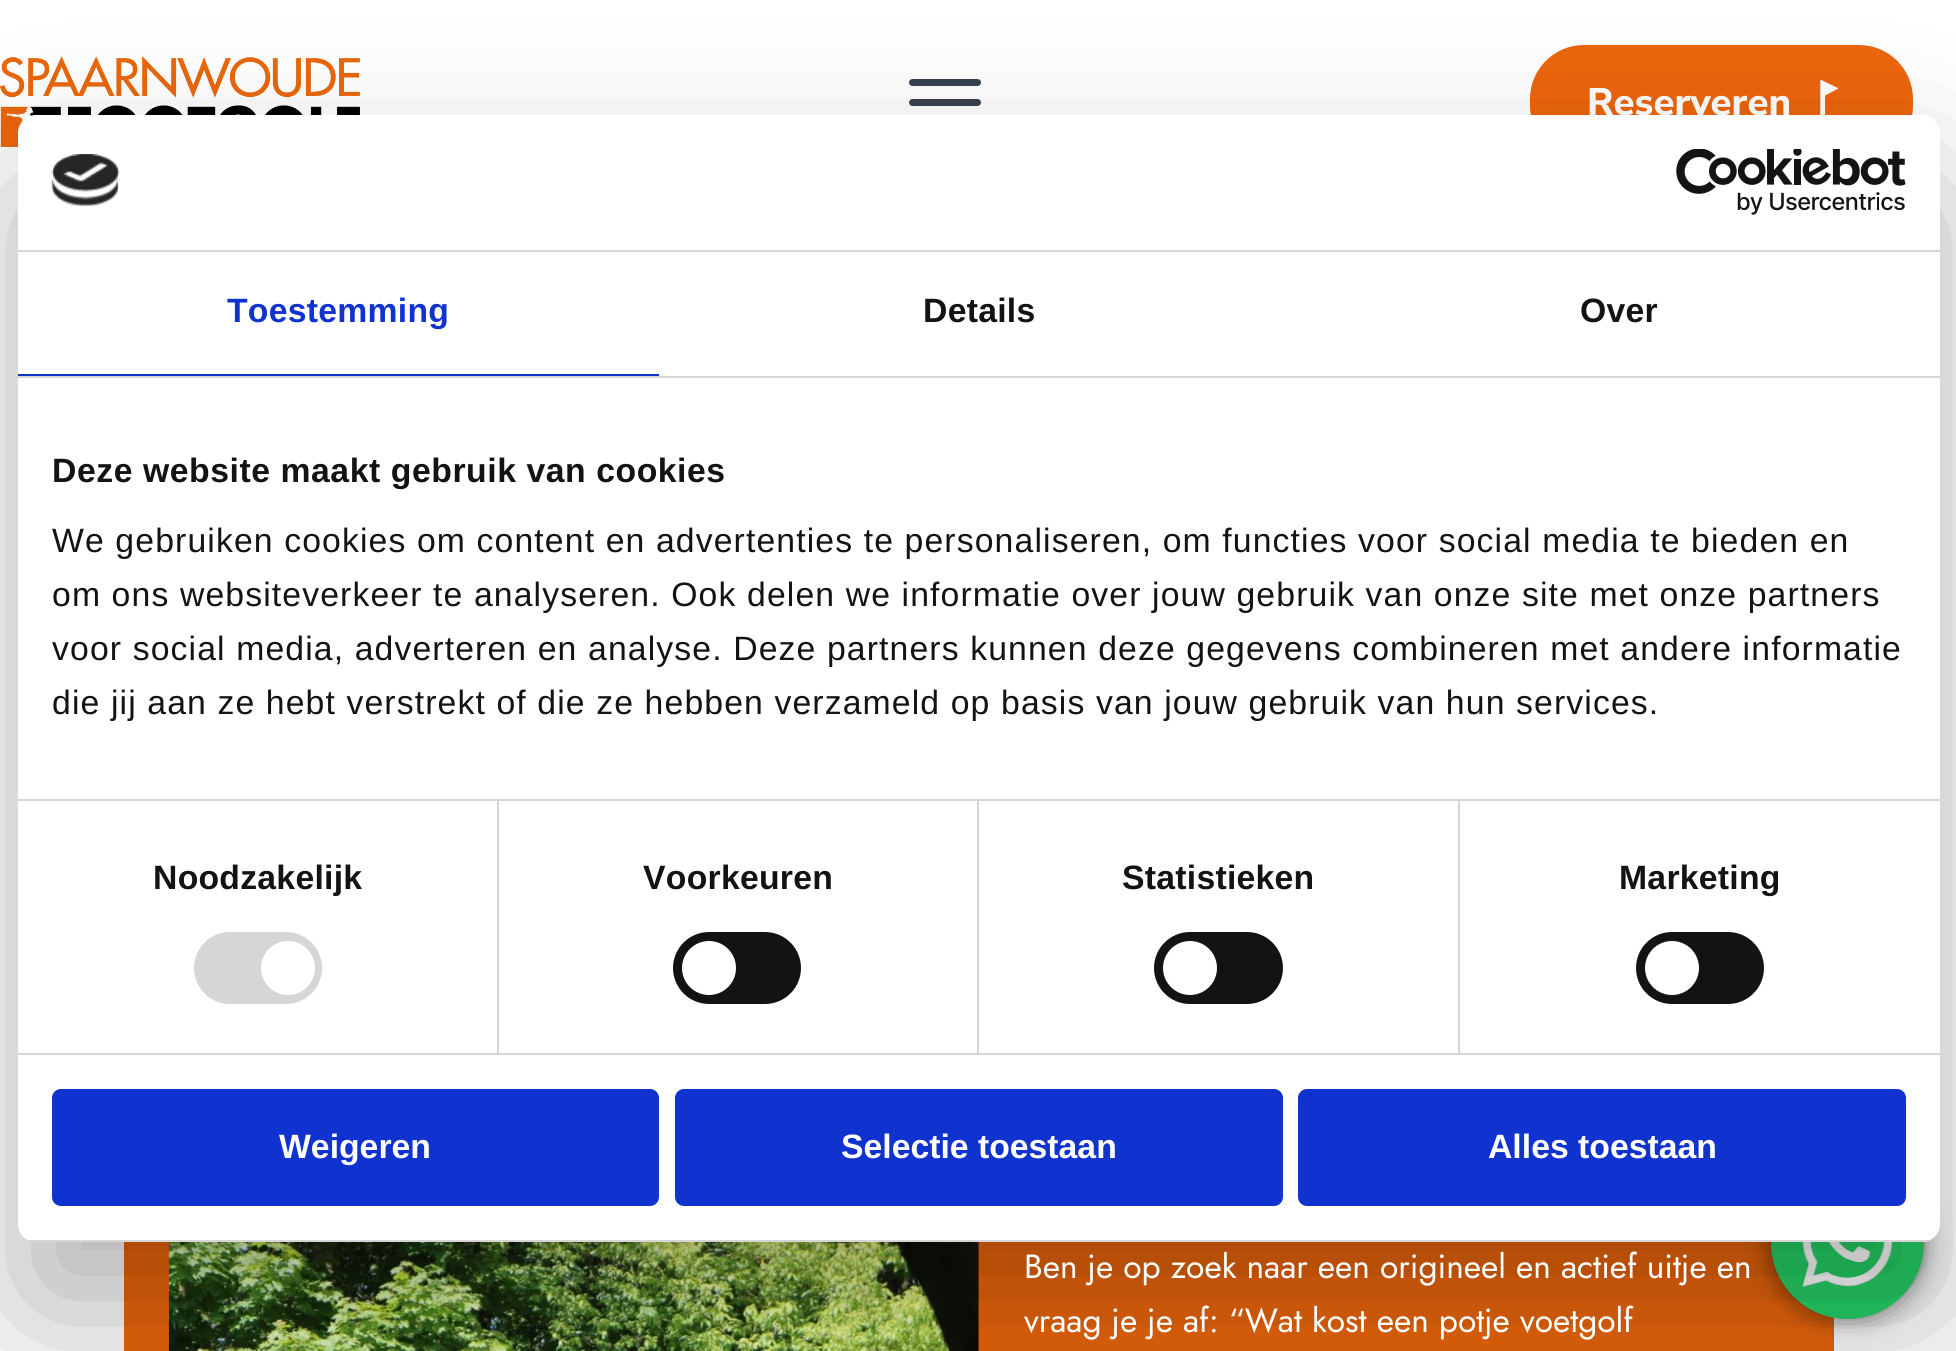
import math
import cairo

surface = cairo.ImageSurface(cairo.FORMAT_RGB24, 1956, 1351)
ctx = cairo.Context(surface)
options = cairo.FontOptions()
options.set_hint_metrics(cairo.HINT_METRICS_OFF)
options.set_hint_style(cairo.HINT_STYLE_NONE)
ctx.set_font_options(options)
ctx.set_miter_limit(4)


def spaced_text(x, y, s, letter, word):
    ctx.move_to(x, y)
    for ch in s:
        ctx.show_text(ch)
        ctx.rel_move_to(letter + word * (ch == ' '), 0)


def round_rect(x, y, w, h, r):
    ctx.new_sub_path()
    for i, (u, v) in enumerate([(x + w - r, y + h - r), (x + r, y + h - r), (x + r, y + r), (x + w - r, y + r)]):
        ctx.arc(u, v, r, i * math.pi / 2, (i + 1) * math.pi / 2)
    ctx.close_path()


def shadow(x, y, w, h, r, blur, alpha):
    ctx.push_group_with_content(cairo.CONTENT_ALPHA)
    ctx.set_operator(cairo.OPERATOR_SOURCE)
    for i in range(15, -16, -2):
        e = blur * i / 6
        if min(w, h) + 2 * e > 0:
            ctx.set_source_rgba(0, 0, 0, alpha * math.erfc((i - 1) / 8.5) / 2)
            round_rect(x - e, y - e, w + 2 * e, h + 2 * e, max(0, min(r + e + blur * .6, min(w, h) / 2 + e)))
            ctx.fill()
    ctx.mask(ctx.pop_group())


def picture(path, x, y, w, h):
    ctx.save()
    ctx.set_source_surface(cairo.ImageSurface.create_from_png(path), x, y)
    ctx.rectangle(x, y, w, h)
    ctx.fill()
    ctx.restore()


ctx.set_source_rgb(1, 1, 1)
ctx.paint()
picture("img1.png", 0, 56, 360, 91)
ctx.set_source_rgb(0.216, 0.255, 0.318)
round_rect(909, 99, 72, 7, 3.5)
ctx.fill()
round_rect(909, 79, 72, 7, 3.5)
ctx.fill()
ctx.set_source_rgb(0.922, 0.4, 0.043)
round_rect(1530, 45, 383, 115, 54)
ctx.fill()
ctx.select_font_face("Nunito Sans ExtraBold")
ctx.set_font_size(38.25)
ctx.set_source_rgb(1, 1, 1)
ctx.move_to(1587, 115)
ctx.show_text("Reserveren")
picture("img2.png", 1820, 79, 19, 36)
ctx.set_source_rgb(0.922, 0.4, 0.043)
ctx.rectangle(124, 1242, 1710, 109)
ctx.fill()
picture("img5.png", 168, 1242, 811, 109)
ctx.set_source_rgb(0, 0, 0)
shadow(1771, 1166, 153, 153, 76.5, 12.5, 0.5)
ctx.set_source_rgb(0.145, 0.827, 0.4)
ctx.arc(1847.5, 1242.5, 76.5, 0, 2 * math.pi)
ctx.fill()
picture("img6.png", 1802, 1242, 91, 45)
ctx.set_source_rgb(0, 0, 0)
shadow(18, 187, 1922, 1127, 18, 76.5, 0.3)
ctx.set_source_rgb(1, 1, 1)
round_rect(18, 115, 1922, 1127, 18)
ctx.fill()
ctx.set_source_rgb(0.839, 0.839, 0.839)
ctx.rectangle(18, 250, 1922, 2)
ctx.fill()
picture("img3.png", 51, 154, 69, 52)
picture("img4.png", 1676, 149, 230, 66)
ctx.rectangle(18, 376, 1922, 2)
ctx.fill()
ctx.set_source_rgb(0.063, 0.196, 0.812)
ctx.rectangle(18, 374, 641, 2)
ctx.fill()
ctx.select_font_face("Liberation Sans", cairo.FONT_SLANT_NORMAL, cairo.FONT_WEIGHT_BOLD)
ctx.set_font_size(33.75)
spaced_text(227, 322, "Toestemming", 0.25, 0)
ctx.set_source_rgb(0.078, 0.078, 0.078)
spaced_text(923, 322, "Details", 0.25, 0)
spaced_text(1580, 322, "Over", 0.25, 0)
ctx.set_source_rgb(0.839, 0.839, 0.839)
ctx.rectangle(18, 799, 1922, 2)
ctx.fill()
ctx.set_source_rgb(0.078, 0.078, 0.078)
spaced_text(52, 482, "Deze website maakt gebruik van cookies", 0.55, 0)
ctx.select_font_face("Liberation Sans")
spaced_text(52, 552, "We gebruiken cookies om content en advertenties te personaliseren, om functies voor social media te bieden en", 1.12, 0)
spaced_text(52, 606, "om ons websiteverkeer te analyseren. Ook delen we informatie over jouw gebruik van onze site met onze partners", 1.12, 0)
spaced_text(52, 660, "voor social media, adverteren en analyse. Deze partners kunnen deze gegevens combineren met andere informatie", 1.12, 0)
spaced_text(52, 714, "die jij aan ze hebt verstrekt of die ze hebben verzameld op basis van jouw gebruik van hun services.", 1.12, 0)
ctx.set_source_rgb(0.839, 0.839, 0.839)
ctx.rectangle(18, 1053, 1922, 2)
ctx.fill()
ctx.rectangle(497, 801, 2, 252)
ctx.fill()
ctx.select_font_face("Liberation Sans", cairo.FONT_SLANT_NORMAL, cairo.FONT_WEIGHT_BOLD)
ctx.set_source_rgb(0.078, 0.078, 0.078)
spaced_text(153, 889, "Noodzakelijk", 0.25, 0)
ctx.set_source_rgb(0.839, 0.839, 0.839)
round_rect(194, 932, 128, 72, 36)
ctx.fill()
ctx.set_source_rgb(1, 1, 1)
ctx.arc(288, 968, 27, 0, 2 * math.pi)
ctx.fill()
ctx.set_source_rgb(0.839, 0.839, 0.839)
ctx.rectangle(977, 801, 2, 252)
ctx.fill()
ctx.set_source_rgb(0.078, 0.078, 0.078)
spaced_text(643, 889, "Voorkeuren", 0.25, 0)
round_rect(673, 932, 128, 72, 36)
ctx.fill()
ctx.set_source_rgb(1, 1, 1)
ctx.arc(709, 968, 27, 0, 2 * math.pi)
ctx.fill()
ctx.set_source_rgb(0.839, 0.839, 0.839)
ctx.rectangle(1458, 801, 2, 252)
ctx.fill()
ctx.set_source_rgb(0.078, 0.078, 0.078)
spaced_text(1122, 889, "Statistieken", 0.25, 0)
round_rect(1154, 932, 129, 72, 36)
ctx.fill()
ctx.set_source_rgb(1, 1, 1)
ctx.arc(1190, 968, 27, 0, 2 * math.pi)
ctx.fill()
ctx.set_source_rgb(0.078, 0.078, 0.078)
spaced_text(1619, 889, "Marketing", 0.25, 0)
round_rect(1636, 932, 128, 72, 36)
ctx.fill()
ctx.set_source_rgb(1, 1, 1)
ctx.arc(1672, 968, 27, 0, 2 * math.pi)
ctx.fill()
ctx.save()
round_rect(18, 115, 1922, 1127, 18)
ctx.clip()
ctx.set_source_rgb(0.839, 0.839, 0.839)
ctx.rectangle(28, 1240, 1902, 2)
ctx.fill()
ctx.restore()
ctx.set_source_rgb(0.063, 0.196, 0.812)
round_rect(54.5, 1091.5, 602, 112, 6.5)
ctx.fill_preserve()
ctx.set_line_width(5)
ctx.stroke()
ctx.set_source_rgb(1, 1, 1)
ctx.move_to(279, 1158)
ctx.show_text("Weigeren")
ctx.set_source_rgb(0.063, 0.196, 0.812)
round_rect(677.5, 1091.5, 603, 112, 6.5)
ctx.fill_preserve()
ctx.stroke()
ctx.set_source_rgb(1, 1, 1)
ctx.move_to(841, 1158)
ctx.show_text("Selectie toestaan")
ctx.set_source_rgb(0.063, 0.196, 0.812)
round_rect(1300.5, 1091.5, 603, 112, 6.5)
ctx.fill_preserve()
ctx.stroke()
ctx.set_source_rgb(1, 1, 1)
ctx.move_to(1488, 1158)
ctx.show_text("Alles toestaan")
ctx.select_font_face("Jost")
ctx.set_font_size(33.5)
ctx.move_to(1024, 1278)
ctx.show_text("Ben je op zoek naar een origineel en actief uitje en")
ctx.move_to(1024, 1332)
ctx.show_text("vraag je je af: “Wat kost een potje voetgolf")
surface.write_to_png("page.png")
